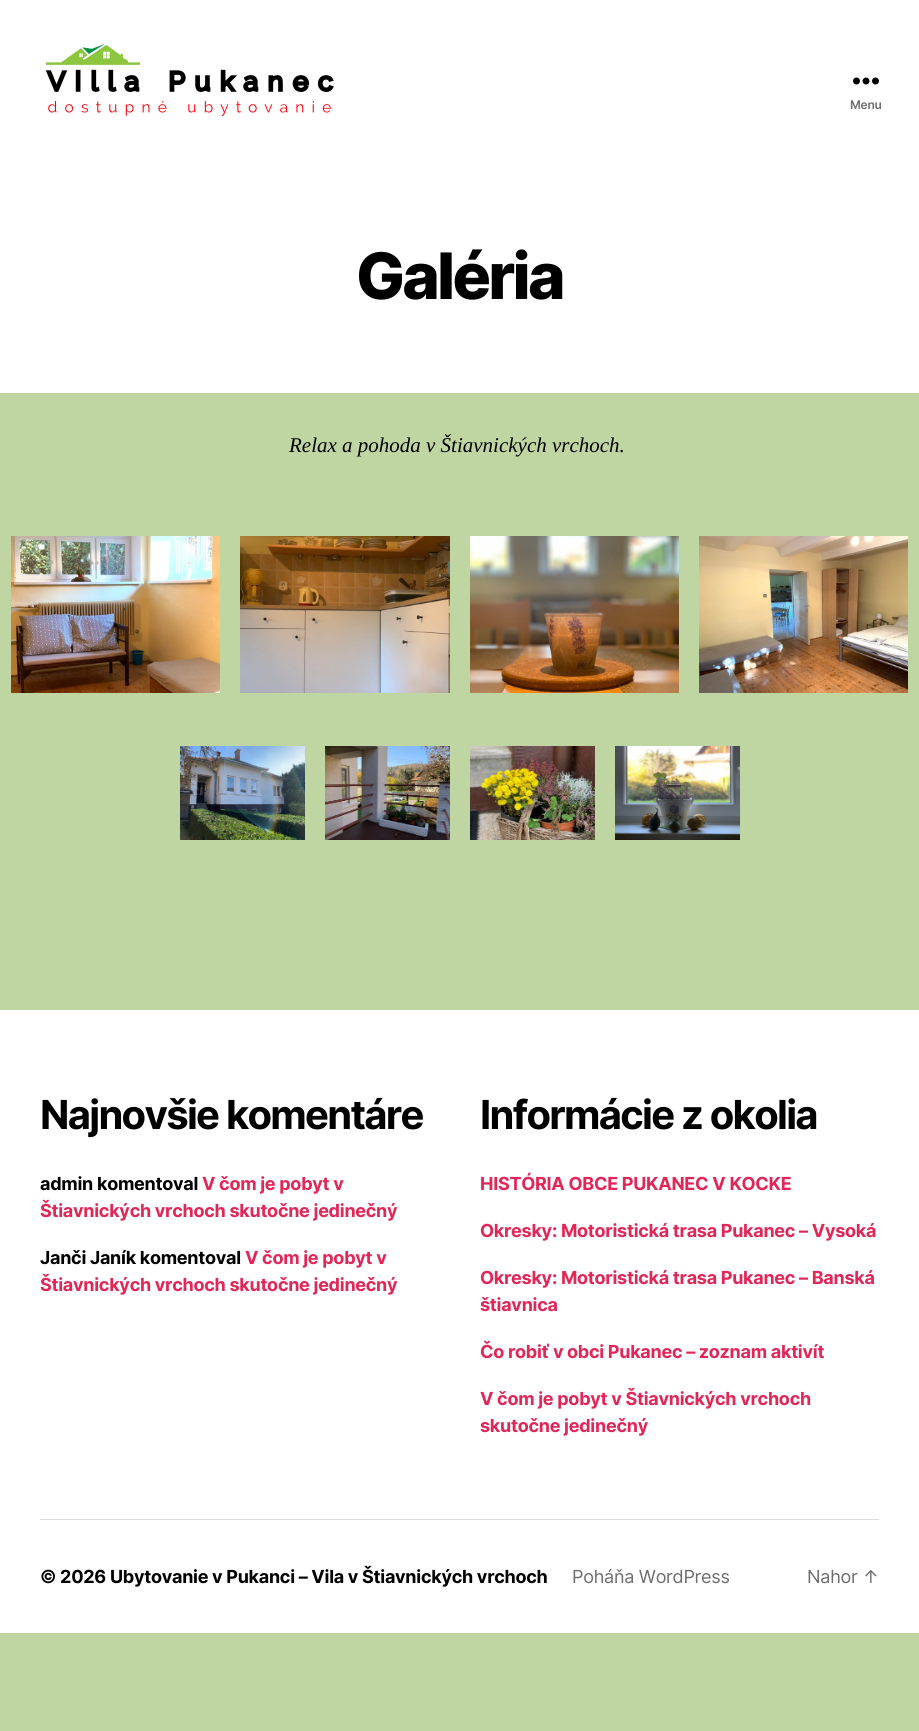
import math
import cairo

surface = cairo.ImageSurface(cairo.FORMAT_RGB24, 919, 1731)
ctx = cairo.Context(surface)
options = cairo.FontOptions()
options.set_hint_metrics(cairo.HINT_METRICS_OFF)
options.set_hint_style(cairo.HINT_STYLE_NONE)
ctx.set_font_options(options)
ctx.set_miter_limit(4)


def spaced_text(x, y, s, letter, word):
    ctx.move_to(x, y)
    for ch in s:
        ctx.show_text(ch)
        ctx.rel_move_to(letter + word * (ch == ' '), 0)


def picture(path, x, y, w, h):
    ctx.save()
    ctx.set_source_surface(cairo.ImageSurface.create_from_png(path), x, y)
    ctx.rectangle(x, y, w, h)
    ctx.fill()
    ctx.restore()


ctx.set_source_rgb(0.749, 0.839, 0.635)
ctx.paint()
ctx.set_source_rgb(1, 1, 1)
ctx.rectangle(0, 0, 919, 393)
ctx.fill()
picture("img1.png", 45, 44, 289, 72)
picture("img2.png", 853, 77, 26, 8)
ctx.select_font_face("Inter SemiBold")
ctx.set_font_size(12)
ctx.set_source_rgb(0.427, 0.427, 0.427)
spaced_text(850, 109, "Menu", -0.27, 0)
ctx.select_font_face("Inter ExtraBold")
ctx.set_font_size(64)
ctx.set_source_rgb(0, 0, 0)
spaced_text(356, 299, "Galéria", -2.75, 0)
ctx.select_font_face("Liberation Serif", cairo.FONT_SLANT_ITALIC)
ctx.set_font_size(21)
ctx.move_to(289, 452)
ctx.show_text("Relax a pohoda v Štiavnických vrchoch.")
picture("img3.png", 11, 536, 209, 157)
picture("img4.png", 240, 536, 210, 157)
picture("img5.png", 470, 536, 209, 157)
picture("img6.png", 699, 536, 209, 157)
picture("img7.png", 180, 746, 125, 94)
picture("img8.png", 325, 746, 125, 94)
picture("img9.png", 470, 746, 125, 94)
picture("img10.png", 615, 746, 125, 94)
ctx.set_source_rgb(1, 1, 1)
ctx.rectangle(0, 1010, 919, 623)
ctx.fill()
ctx.set_source_rgb(0.859, 0.859, 0.859)
ctx.rectangle(40, 1519, 839, 1)
ctx.fill()
ctx.select_font_face("Inter", cairo.FONT_SLANT_NORMAL, cairo.FONT_WEIGHT_BOLD)
ctx.set_font_size(40)
ctx.set_source_rgb(0, 0, 0)
spaced_text(40, 1129, "Najnovšie komentáre", -1.7, 0)
ctx.set_font_size(18)
spaced_text(40, 1190, "admin komentoval", -0.27, 0)
ctx.set_source_rgb(0.886, 0.149, 0.345)
spaced_text(202, 1190, "V čom je pobyt v", -0.27, 0)
spaced_text(40, 1217, "Štiavnických vrchoch skutočne jedinečný", -0.27, 0)
ctx.set_source_rgb(0, 0, 0)
spaced_text(40, 1264, "Janči Janík komentoval", -0.27, 0)
ctx.set_source_rgb(0.886, 0.149, 0.345)
spaced_text(245, 1264, "V čom je pobyt v", -0.27, 0)
spaced_text(40, 1291, "Štiavnických vrchoch skutočne jedinečný", -0.27, 0)
ctx.set_font_size(40)
ctx.set_source_rgb(0, 0, 0)
spaced_text(480, 1129, "Informácie z okolia", -1.7, 0)
ctx.set_font_size(18)
ctx.set_source_rgb(0.886, 0.149, 0.345)
spaced_text(480, 1190, "HISTÓRIA OBCE PUKANEC V KOCKE", -0.27, 0)
spaced_text(480, 1237, "Okresky: Motoristická trasa Pukanec – Vysoká", -0.27, 0)
spaced_text(480, 1284, "Okresky: Motoristická trasa Pukanec – Banská", -0.27, 0)
spaced_text(480, 1311, "štiavnica", -0.27, 0)
spaced_text(480, 1358, "Čo robiť v obci Pukanec – zoznam aktivít", -0.27, 0)
spaced_text(480, 1405, "V čom je pobyt v Štiavnických vrchoch", -0.27, 0)
spaced_text(480, 1432, "skutočne jedinečný", -0.27, 0)
ctx.set_source_rgb(0, 0, 0)
spaced_text(40, 1583, "© 2026 Ubytovanie v Pukanci – Vila v Štiavnických vrchoch", -0.27, 0)
ctx.select_font_face("Inter")
ctx.set_source_rgb(0.427, 0.427, 0.427)
spaced_text(572, 1583, "Poháňa WordPress", -0.27, 0)
spaced_text(807, 1583, "Nahor ↑", -0.27, 0)
surface.write_to_png("page.png")
